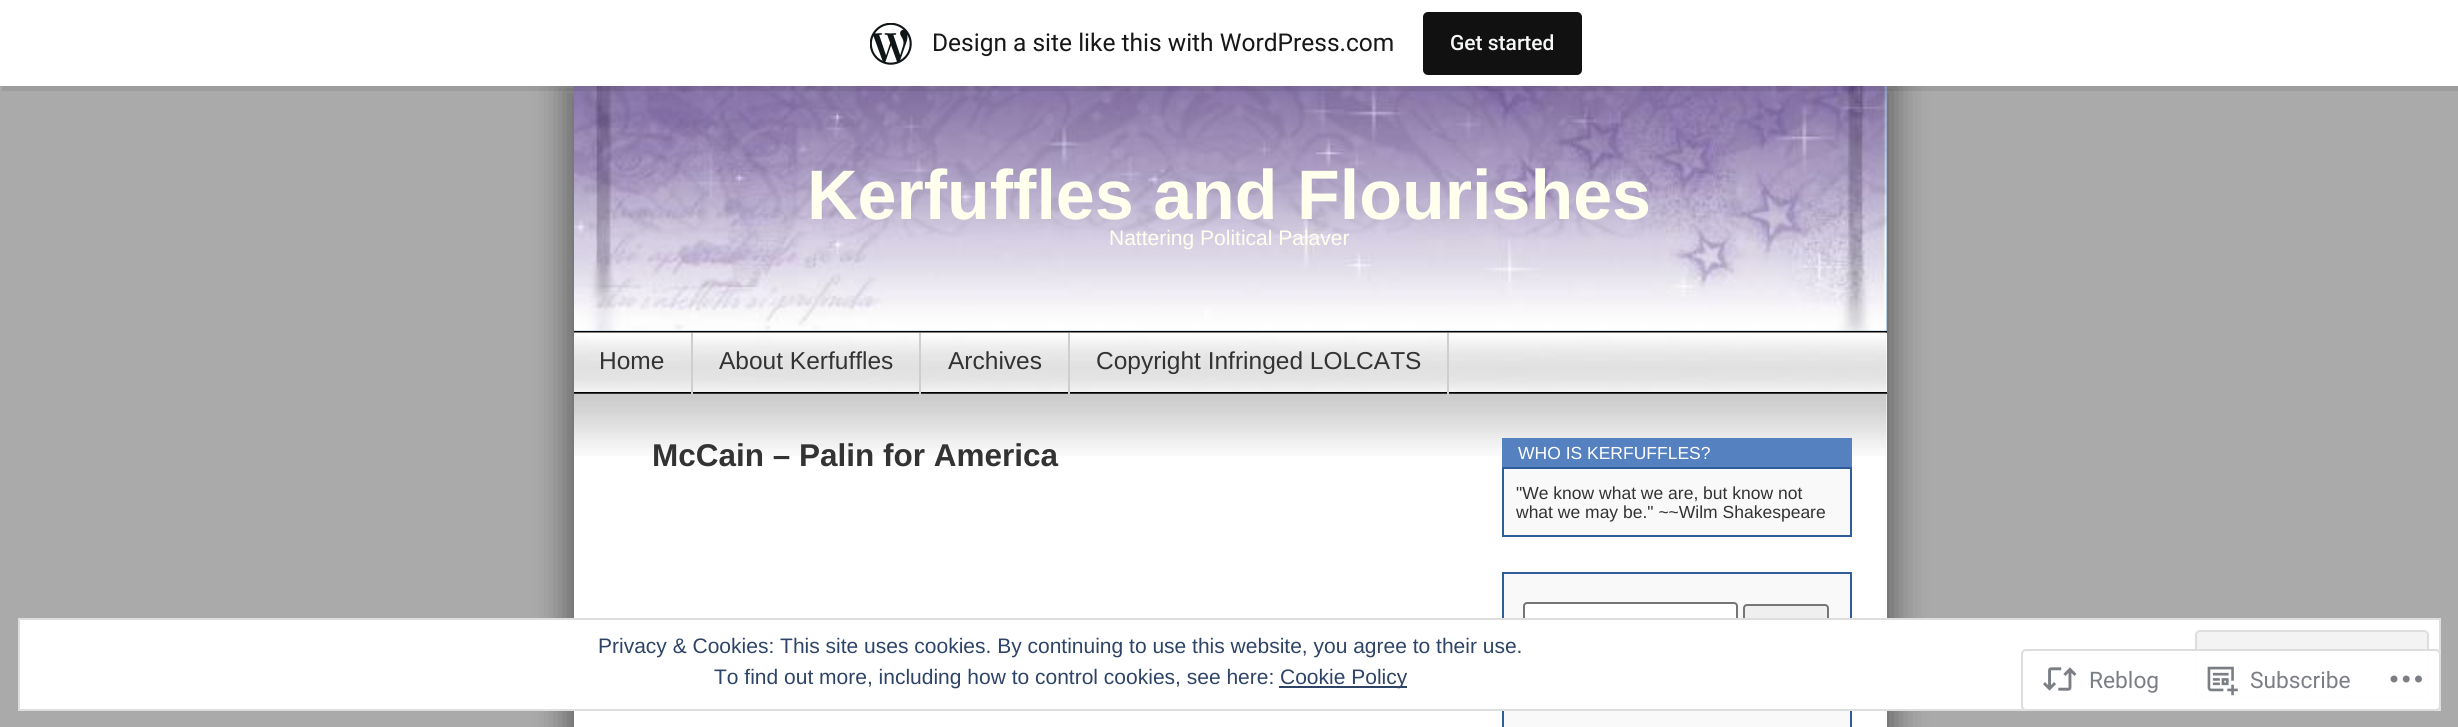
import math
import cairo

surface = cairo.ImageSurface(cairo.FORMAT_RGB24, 2458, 727)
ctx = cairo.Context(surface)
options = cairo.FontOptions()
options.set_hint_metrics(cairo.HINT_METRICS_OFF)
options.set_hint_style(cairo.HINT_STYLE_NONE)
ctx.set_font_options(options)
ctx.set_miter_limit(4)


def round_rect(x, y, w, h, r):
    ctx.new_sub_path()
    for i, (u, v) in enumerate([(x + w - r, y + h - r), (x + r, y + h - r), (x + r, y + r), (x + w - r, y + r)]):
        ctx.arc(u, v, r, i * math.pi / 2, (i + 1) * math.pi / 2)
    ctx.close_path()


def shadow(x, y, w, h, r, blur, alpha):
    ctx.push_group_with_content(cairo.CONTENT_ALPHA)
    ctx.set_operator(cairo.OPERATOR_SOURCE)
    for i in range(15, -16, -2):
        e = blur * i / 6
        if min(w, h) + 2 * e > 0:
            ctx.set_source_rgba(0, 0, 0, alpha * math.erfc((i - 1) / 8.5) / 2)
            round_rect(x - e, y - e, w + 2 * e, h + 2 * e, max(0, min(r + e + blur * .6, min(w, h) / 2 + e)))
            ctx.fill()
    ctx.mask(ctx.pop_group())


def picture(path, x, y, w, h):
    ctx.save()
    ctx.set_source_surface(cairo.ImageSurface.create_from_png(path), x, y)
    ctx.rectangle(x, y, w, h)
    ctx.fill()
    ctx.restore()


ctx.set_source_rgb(0.667, 0.667, 0.667)
ctx.paint()
ctx.set_source_rgb(0, 0, 0)
shadow(560, 86, 1313, 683, 0, 14, 0.3)
shadow(588, 82, 1313, 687, 0, 14, 0.3)
ctx.set_source_rgb(0.451, 0.627, 0.773)
ctx.rectangle(574, 86, 1313, 245)
ctx.fill()
picture("img2.png", 574, 86, 1313, 245)
ctx.set_source_rgba(0, 0, 0, 0.08)
ctx.new_path()
ctx.move_to(2, 86)
ctx.line_to(2, 91)
ctx.line_to(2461, 91)
ctx.line_to(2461, 5)
ctx.line_to(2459, 5)
ctx.line_to(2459, 86)
ctx.close_path()
ctx.fill()
ctx.set_source_rgb(1, 1, 1)
ctx.rectangle(0, 0, 2458, 86)
ctx.fill()
picture("img1.png", 870, 23, 42, 42)
ctx.select_font_face("Roboto")
ctx.set_font_size(24.5)
ctx.set_source_rgb(0.09, 0.09, 0.09)
ctx.move_to(932, 51)
ctx.show_text("Design a site like this with WordPress.com")
ctx.set_source_rgb(0.067, 0.067, 0.067)
round_rect(1423, 12, 159, 63, 5)
ctx.fill()
ctx.select_font_face("Roboto Medium")
ctx.set_font_size(21)
ctx.set_source_rgb(0.965, 0.969, 0.969)
ctx.move_to(1450, 50)
ctx.show_text("Get started")
ctx.set_source_rgb(1, 1, 1)
ctx.rectangle(574, 333, 1313, 394)
ctx.fill()
ctx.set_source_rgb(0, 0, 0)
ctx.rectangle(574, 331, 1313, 2)
ctx.fill()
ctx.select_font_face("Liberation Sans", cairo.FONT_SLANT_NORMAL, cairo.FONT_WEIGHT_BOLD)
ctx.set_font_size(70)
ctx.set_source_rgb(1, 1, 0.933)
ctx.move_to(807, 219)
ctx.show_text("Kerfuffles and Flourishes")
ctx.select_font_face("Liberation Sans")
ctx.set_font_size(21)
ctx.move_to(1109, 245)
ctx.show_text("Nattering Political Palaver")
picture("img3.png", 574, 332, 1313, 60)
ctx.set_source_rgb(0, 0, 0)
ctx.rectangle(574, 392, 1313, 2)
ctx.fill()
picture("img4.png", 574, 393, 1313, 63)
ctx.set_source_rgb(0.808, 0.808, 0.808)
ctx.rectangle(691, 333, 2, 61)
ctx.fill()
ctx.set_font_size(24.5)
ctx.set_source_rgb(0.2, 0.2, 0.2)
ctx.move_to(599, 369)
ctx.show_text("Home")
ctx.set_source_rgb(0.808, 0.808, 0.808)
ctx.rectangle(919, 333, 2, 61)
ctx.fill()
ctx.set_source_rgb(0.2, 0.2, 0.2)
ctx.move_to(719, 369)
ctx.show_text("About Kerfuffles")
ctx.set_source_rgb(0.808, 0.808, 0.808)
ctx.rectangle(1068, 333, 2, 61)
ctx.fill()
ctx.set_source_rgb(0.2, 0.2, 0.2)
ctx.move_to(948, 369)
ctx.show_text("Archives")
ctx.set_source_rgb(0.808, 0.808, 0.808)
ctx.rectangle(1447, 333, 2, 61)
ctx.fill()
ctx.set_source_rgb(0.2, 0.2, 0.2)
ctx.move_to(1096, 369)
ctx.show_text("Copyright Infringed LOLCATS")
ctx.select_font_face("Liberation Sans", cairo.FONT_SLANT_NORMAL, cairo.FONT_WEIGHT_BOLD)
ctx.set_font_size(31.5)
ctx.move_to(652, 466)
ctx.show_text("McCain – Palin for America")
ctx.set_source_rgb(0.333, 0.506, 0.753)
ctx.rectangle(1502, 438, 350, 29)
ctx.fill()
ctx.select_font_face("Liberation Sans")
ctx.set_font_size(17.5)
ctx.set_source_rgb(1, 1, 1)
ctx.move_to(1518, 459)
ctx.show_text("WHO IS KERFUFFLES?")
ctx.set_source_rgb(0.973, 0.973, 0.973)
ctx.rectangle(1503, 468, 348, 68)
ctx.fill_preserve()
ctx.set_source_rgb(0.18, 0.365, 0.6)
ctx.stroke()
ctx.set_source_rgb(0.2, 0.2, 0.2)
ctx.move_to(1516, 499)
ctx.show_text("\"We know what we are, but know not")
ctx.move_to(1516, 518)
ctx.show_text("what we may be.\" ~~Wilm Shakespeare")
ctx.set_source_rgb(0.973, 0.973, 0.973)
ctx.rectangle(1504, 574, 346, 44)
ctx.fill()
ctx.rectangle(1503, 573, 348, 84)
ctx.set_source_rgb(0.18, 0.365, 0.6)
ctx.stroke()
ctx.set_source_rgb(1, 1, 1)
round_rect(1524, 603, 213, 38, 3)
ctx.fill_preserve()
ctx.set_source_rgb(0.463, 0.463, 0.463)
ctx.stroke()
ctx.set_source_rgb(0.937, 0.937, 0.937)
round_rect(1744, 605, 84, 35, 3)
ctx.fill_preserve()
ctx.set_source_rgb(0.463, 0.463, 0.463)
ctx.stroke()
ctx.set_source_rgb(0.973, 0.973, 0.973)
ctx.rectangle(1504, 711, 346, 16)
ctx.fill()
ctx.rectangle(1503, 694, 348, 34)
ctx.set_source_rgb(0.18, 0.365, 0.6)
ctx.stroke()
ctx.set_source_rgb(1, 1, 1)
ctx.rectangle(19, 619, 2421, 91)
ctx.fill_preserve()
ctx.set_source_rgb(0.871, 0.871, 0.871)
ctx.stroke()
ctx.set_font_size(21)
ctx.set_source_rgb(0.18, 0.267, 0.404)
ctx.move_to(598, 653)
ctx.show_text("Privacy & Cookies: This site uses cookies. By continuing to use this website, you agree to their use.")
ctx.set_source_rgb(0.953, 0.953, 0.953)
round_rect(2196, 631, 232, 66, 4)
ctx.fill_preserve()
ctx.set_source_rgb(0.871, 0.871, 0.871)
ctx.stroke()
ctx.set_source_rgb(0.18, 0.267, 0.404)
ctx.move_to(714, 684)
ctx.show_text("To find out more, including how to control cookies, see here:")
ctx.rectangle(1279, 686, 128, 2)
ctx.fill()
ctx.move_to(1280, 684)
ctx.show_text("Cookie Policy")
ctx.set_source_rgba(1, 1, 1, 0.98)
round_rect(2021, 649, 420, 62, 5)
ctx.fill()
round_rect(2022, 650, 418, 60, 4)
ctx.set_source_rgba(0.863, 0.863, 0.871, 0.98)
ctx.stroke()
picture("img5.png", 2043, 667, 34, 24)
ctx.select_font_face("Roboto")
ctx.set_font_size(22.75)
ctx.set_source_rgb(0.482, 0.498, 0.522)
ctx.move_to(2089, 688)
ctx.show_text("Reblog")
picture("img6.png", 2207, 666, 31, 30)
ctx.move_to(2250, 688)
ctx.show_text("Subscribe")
picture("img7.png", 2390, 675, 32, 8)
surface.write_to_png("page.png")
